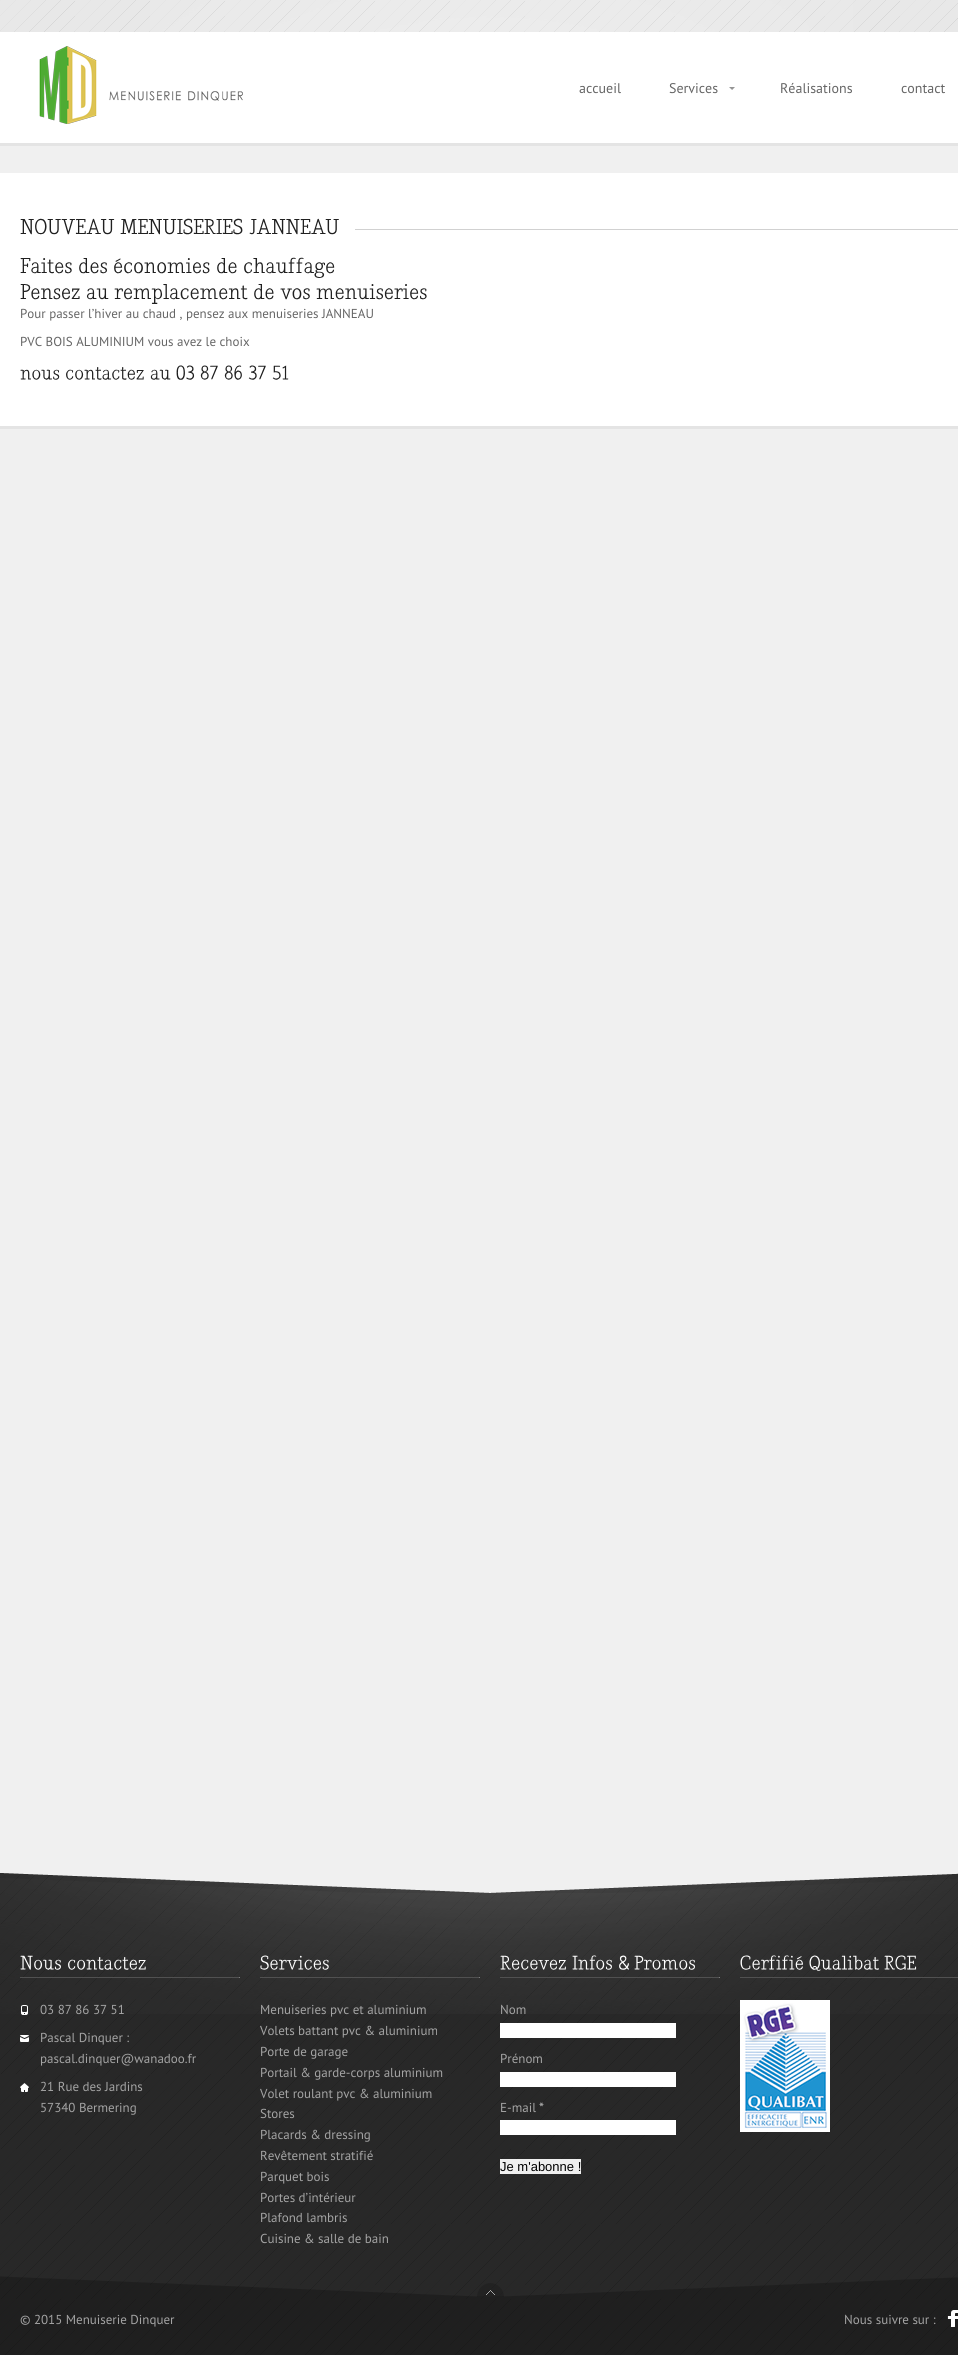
import math
import cairo

surface = cairo.ImageSurface(cairo.FORMAT_RGB24, 958, 2355)
ctx = cairo.Context(surface)
options = cairo.FontOptions()
options.set_hint_metrics(cairo.HINT_METRICS_OFF)
options.set_hint_style(cairo.HINT_STYLE_NONE)
ctx.set_font_options(options)
ctx.set_miter_limit(4)


def picture(path, x, y, w, h):
    ctx.save()
    ctx.set_source_surface(cairo.ImageSurface.create_from_png(path), x, y)
    ctx.rectangle(x, y, w, h)
    ctx.fill()
    ctx.restore()


ctx.set_source_rgb(0.941, 0.941, 0.941)
ctx.paint()
ctx.set_source_rgb(0.91, 0.91, 0.91)
ctx.rectangle(0, 0, 958, 32)
ctx.fill()
picture("img1.png", 0, 0, 958, 32)
picture("img2.png", 150, 0, 703, 32)
ctx.set_source_rgb(1, 1, 1)
ctx.rectangle(0, 32, 958, 111)
ctx.fill()
picture("img3.png", 39, 46, 204, 78)
ctx.select_font_face("PT Sans")
ctx.set_font_size(14)
ctx.set_source_rgb(0.396, 0.396, 0.396)
ctx.move_to(579, 93)
ctx.show_text("accueil")
picture("img4.png", 729, 87, 6, 3)
ctx.move_to(669, 93)
ctx.show_text("Services")
ctx.move_to(780, 93)
ctx.show_text("Réalisations")
ctx.move_to(901, 93)
ctx.show_text("contact")
ctx.set_source_rgb(0.894, 0.894, 0.894)
ctx.rectangle(0, 143, 958, 3)
ctx.fill()
ctx.set_source_rgb(1, 1, 1)
ctx.rectangle(0, 173, 958, 253)
ctx.fill()
ctx.set_source_rgb(0.82, 0.82, 0.82)
ctx.rectangle(355, 229, 603, 1)
ctx.fill()
picture("img5.png", 20, 218, 95, 17)
picture("img6.png", 120, 218, 123, 17)
picture("img7.png", 249, 218, 90, 17)
picture("img8.png", 20, 258, 52, 16)
picture("img9.png", 79, 258, 28, 16)
picture("img10.png", 114, 258, 96, 16)
picture("img11.png", 217, 258, 20, 16)
picture("img12.png", 244, 257, 91, 21)
picture("img13.png", 20, 284, 60, 16)
picture("img14.png", 86, 288, 23, 12)
picture("img15.png", 114, 284, 134, 20)
picture("img11.png", 254, 284, 20, 16)
picture("img16.png", 280, 288, 30, 12)
picture("img17.png", 316, 284, 111, 16)
ctx.set_font_size(13)
ctx.set_source_rgb(0.396, 0.396, 0.396)
ctx.move_to(20, 318)
ctx.show_text("Pour passer l’hiver au chaud , pensez aux menuiseries JANNEAU")
ctx.move_to(20, 346)
ctx.show_text("PVC BOIS ALUMINIUM vous avez le choix")
picture("img18.png", 20, 369, 40, 11)
picture("img19.png", 66, 367, 78, 13)
picture("img20.png", 150, 369, 21, 11)
picture("img21.png", 176, 365, 19, 15)
picture("img22.png", 200, 365, 18, 15)
picture("img23.png", 224, 365, 18, 15)
picture("img24.png", 248, 365, 18, 15)
picture("img25.png", 272, 365, 17, 15)
ctx.set_source_rgb(0.894, 0.894, 0.894)
ctx.rectangle(0, 426, 958, 3)
ctx.fill()
ctx.set_source_rgb(0.157, 0.157, 0.157)
ctx.rectangle(0, 1873, 958, 482)
ctx.fill()
picture("img26.png", 0, 1873, 958, 482)
picture("img27.png", 0, 1873, 958, 141)
picture("img28.png", 0, 1849, 958, 44)
picture("img29.png", 20, 1955, 41, 15)
picture("img30.png", 68, 1957, 78, 13)
picture("img31.png", 20, 1977, 220, 1)
picture("img32.png", 21, 2005, 7, 10)
ctx.set_source_rgb(0.643, 0.643, 0.643)
ctx.move_to(40, 2014)
ctx.show_text("03 87 86 37 51")
picture("img33.png", 20, 2035, 9, 7)
ctx.move_to(40, 2042)
ctx.show_text("Pascal Dinquer :")
ctx.move_to(40, 2063)
ctx.show_text("pascal.dinquer@wanadoo.fr")
picture("img34.png", 20, 2083, 9, 9)
ctx.move_to(40, 2091)
ctx.show_text("21 Rue des Jardins")
ctx.move_to(40, 2112)
ctx.show_text("57340 Bermering")
picture("img35.png", 260, 1955, 69, 15)
picture("img31.png", 260, 1977, 220, 1)
ctx.move_to(260, 2014)
ctx.show_text("Menuiseries pvc et aluminium")
ctx.move_to(260, 2035)
ctx.show_text("Volets battant pvc & aluminium")
ctx.move_to(260, 2056)
ctx.show_text("Porte de garage")
ctx.move_to(260, 2077)
ctx.show_text("Portail & garde-corps aluminium")
ctx.move_to(260, 2098)
ctx.show_text("Volet roulant pvc & aluminium")
ctx.move_to(260, 2118)
ctx.show_text("Stores")
ctx.move_to(260, 2139)
ctx.show_text("Placards & dressing")
ctx.move_to(260, 2160)
ctx.show_text("Revêtement stratifié")
ctx.move_to(260, 2181)
ctx.show_text("Parquet bois")
ctx.move_to(260, 2202)
ctx.show_text("Portes d’intérieur")
ctx.move_to(260, 2222)
ctx.show_text("Plafond lambris")
ctx.move_to(260, 2243)
ctx.show_text("Cuisine & salle de bain")
picture("img36.png", 500, 1955, 66, 15)
picture("img37.png", 572, 1955, 40, 15)
picture("img38.png", 619, 1955, 10, 15)
picture("img39.png", 634, 1955, 61, 15)
picture("img31.png", 500, 1977, 220, 1)
ctx.move_to(500, 2014)
ctx.show_text("Nom")
ctx.set_source_rgb(1, 1, 1)
ctx.rectangle(500, 2023, 176, 15)
ctx.fill()
ctx.set_source_rgb(0.643, 0.643, 0.643)
ctx.move_to(500, 2063)
ctx.show_text("Prénom")
ctx.set_source_rgb(1, 1, 1)
ctx.rectangle(500, 2072, 176, 15)
ctx.fill()
ctx.set_source_rgb(0.643, 0.643, 0.643)
ctx.move_to(500, 2112)
ctx.show_text("E-mail")
ctx.select_font_face("PT Sans", cairo.FONT_SLANT_NORMAL, cairo.FONT_WEIGHT_BOLD)
ctx.move_to(539, 2112)
ctx.show_text("*")
ctx.set_source_rgb(1, 1, 1)
ctx.rectangle(500, 2120, 176, 15)
ctx.fill()
ctx.set_source_rgb(0.937, 0.937, 0.937)
ctx.rectangle(500, 2159, 81, 15)
ctx.fill()
ctx.select_font_face("Liberation Sans")
ctx.set_source_rgb(0, 0, 0)
ctx.move_to(500, 2171)
ctx.show_text("Je m'abonne !")
picture("img40.png", 740, 1955, 63, 15)
picture("img41.png", 809, 1955, 70, 16)
picture("img42.png", 884, 1955, 33, 15)
ctx.set_source_rgb(0.318, 0.318, 0.318)
ctx.rectangle(740, 1977, 218, 1)
ctx.fill()
picture("img43.png", 740, 2000, 90, 132)
picture("img44.png", 0, 2276, 958, 21)
ctx.set_source_rgba(0, 0, 0, 0.22)
ctx.rectangle(0, 2297, 958, 58)
ctx.fill()
picture("img45.png", 477, 2283, 27, 14)
ctx.select_font_face("PT Sans")
ctx.set_source_rgb(0.643, 0.643, 0.643)
ctx.move_to(20, 2324)
ctx.show_text("© 2015 Menuiserie Dinquer")
ctx.move_to(844, 2324)
ctx.show_text("Nous suivre sur :")
picture("img46.png", 947, 2310, 11, 17)
surface.write_to_png("page.png")
